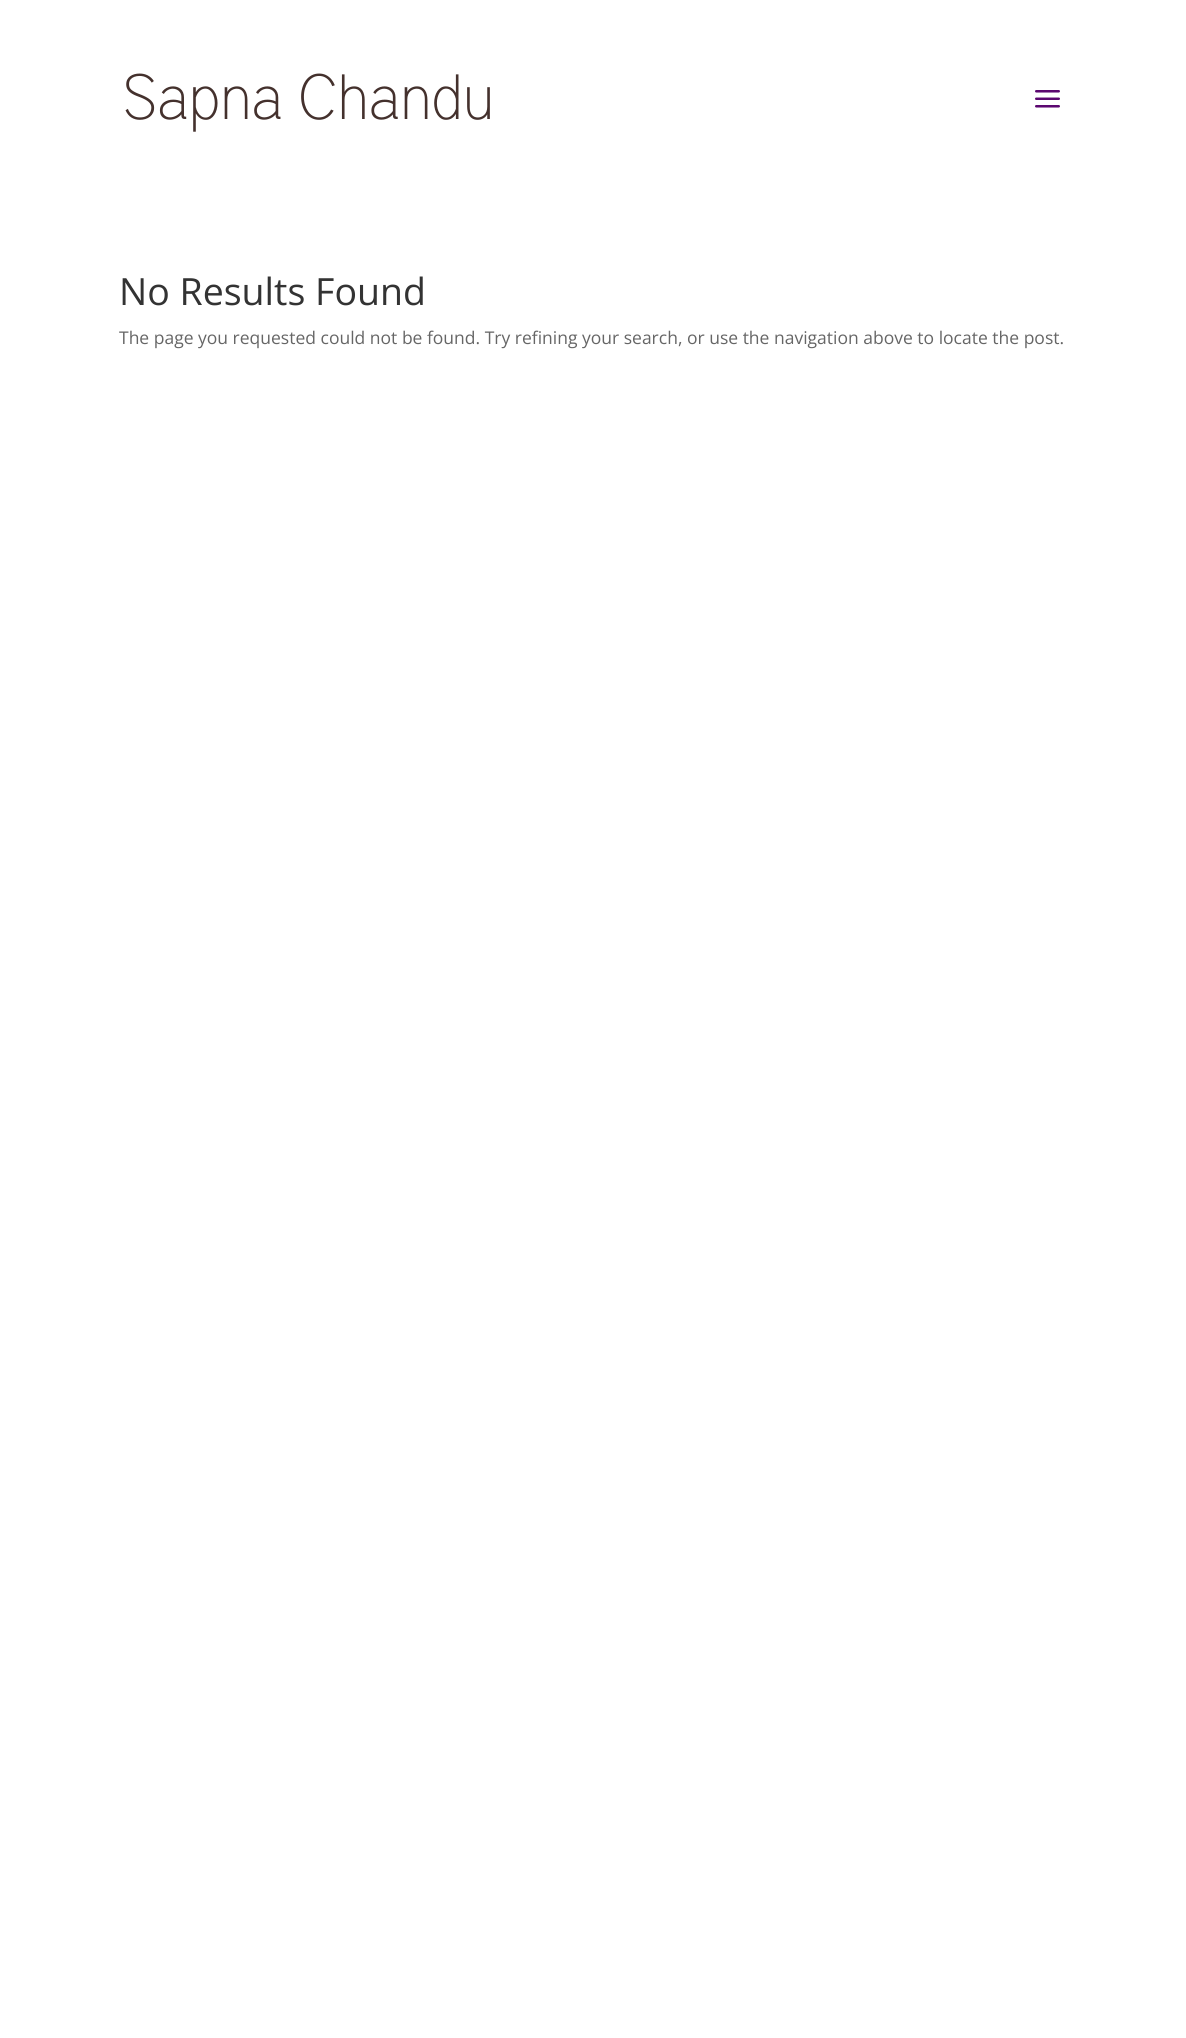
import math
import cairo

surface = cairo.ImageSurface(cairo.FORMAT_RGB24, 1186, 2038)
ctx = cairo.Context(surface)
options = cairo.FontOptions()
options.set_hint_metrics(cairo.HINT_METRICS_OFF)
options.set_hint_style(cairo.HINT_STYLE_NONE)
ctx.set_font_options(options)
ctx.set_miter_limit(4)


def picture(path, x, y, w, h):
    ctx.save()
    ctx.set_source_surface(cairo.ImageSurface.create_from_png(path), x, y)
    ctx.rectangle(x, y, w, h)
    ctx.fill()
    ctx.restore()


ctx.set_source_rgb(1, 1, 1)
ctx.paint()
ctx.select_font_face("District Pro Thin")
ctx.set_font_size(63.5)
ctx.set_source_rgb(0.267, 0.192, 0.176)
ctx.move_to(123, 119)
ctx.show_text("Sapna Chandu")
picture("img1.png", 1035, 90, 25, 18)
ctx.select_font_face("Open Sans")
ctx.set_font_size(37.5)
ctx.set_source_rgb(0.2, 0.2, 0.2)
ctx.move_to(119, 305)
ctx.show_text("No Results Found")
ctx.set_font_size(17.5)
ctx.set_source_rgb(0.4, 0.4, 0.4)
ctx.move_to(119, 344)
ctx.show_text("The page you requested could not be found. Try refining your search, or use the navigation above to locate the post.")
surface.write_to_png("page.png")
